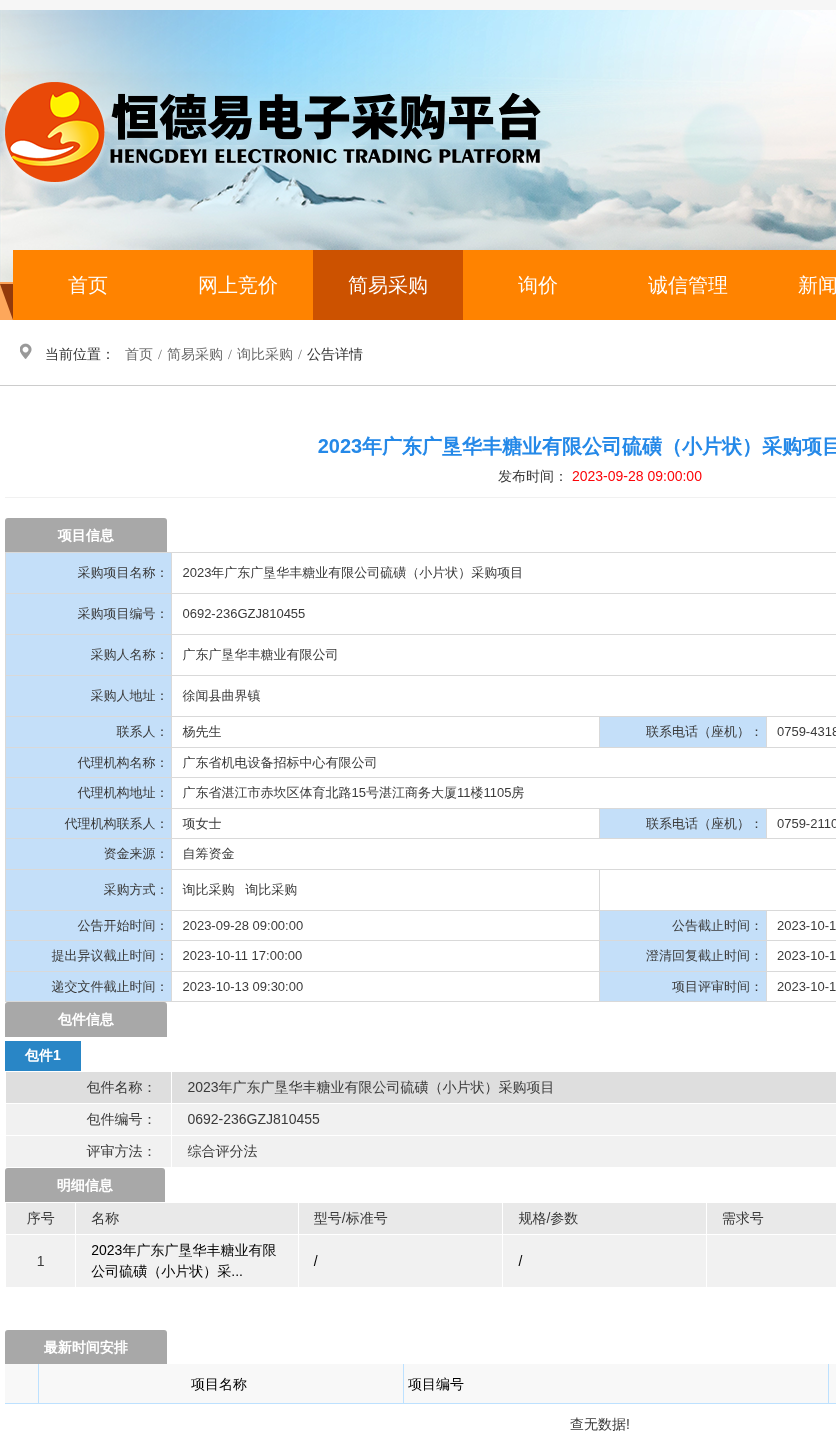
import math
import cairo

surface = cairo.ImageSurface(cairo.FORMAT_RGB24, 836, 1449)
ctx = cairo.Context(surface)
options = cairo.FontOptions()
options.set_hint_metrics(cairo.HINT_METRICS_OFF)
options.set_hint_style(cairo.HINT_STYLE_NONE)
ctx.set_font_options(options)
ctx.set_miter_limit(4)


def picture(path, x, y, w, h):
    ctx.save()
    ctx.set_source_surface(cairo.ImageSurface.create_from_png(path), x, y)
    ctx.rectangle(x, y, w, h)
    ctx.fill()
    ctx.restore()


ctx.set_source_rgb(0.961, 0.961, 0.961)
ctx.paint()
ctx.set_source_rgb(1, 1, 1)
ctx.rectangle(0, 320, 836, 1129)
ctx.fill()
ctx.set_source_rgb(0.992, 0.635, 0.341)
ctx.rectangle(0, 282, 13, 2)
ctx.fill()
picture("img1.png", 0, 10, 836, 272)
picture("img2.png", 2, 82, 540, 106)
ctx.set_source_rgb(0.992, 0.655, 0.357)
ctx.rectangle(0, 284, 13, 36)
ctx.fill()
picture("img3.png", 0, 284, 13, 36)
ctx.set_source_rgb(1, 0.514, 0)
ctx.rectangle(13, 250, 300, 70)
ctx.fill()
ctx.select_font_face("WenQuanYi Zen Hei Medium")
ctx.set_font_size(20)
ctx.set_source_rgb(1, 1, 1)
ctx.move_to(68, 292)
ctx.show_text("首页")
ctx.move_to(198, 292)
ctx.show_text("网上竞价")
ctx.set_source_rgb(0.8, 0.322, 0)
ctx.rectangle(313, 250, 150, 70)
ctx.fill()
ctx.set_source_rgb(1, 1, 1)
ctx.move_to(348, 292)
ctx.show_text("简易采购")
ctx.set_source_rgb(1, 0.514, 0)
ctx.rectangle(463, 250, 373, 70)
ctx.fill()
ctx.set_source_rgb(1, 1, 1)
ctx.move_to(518, 292)
ctx.show_text("询价")
ctx.move_to(648, 292)
ctx.show_text("诚信管理")
ctx.move_to(798, 292)
ctx.show_text("新闻")
picture("img4.png", 20, 343, 12, 16)
ctx.set_source_rgb(0.8, 0.8, 0.8)
ctx.rectangle(0, 385, 836, 1)
ctx.fill()
ctx.set_font_size(14)
ctx.set_source_rgb(0.196, 0.196, 0.196)
ctx.move_to(45, 359)
ctx.show_text("当前位置：")
ctx.set_source_rgb(0.4, 0.4, 0.4)
ctx.move_to(125, 359)
ctx.show_text("首页")
ctx.select_font_face("Liberation Serif")
ctx.move_to(158, 359)
ctx.show_text("/")
ctx.select_font_face("WenQuanYi Zen Hei Medium")
ctx.move_to(167, 359)
ctx.show_text("简易采购")
ctx.select_font_face("Liberation Serif")
ctx.move_to(228, 359)
ctx.show_text("/")
ctx.select_font_face("WenQuanYi Zen Hei Medium")
ctx.move_to(237, 359)
ctx.show_text("询比采购")
ctx.select_font_face("Liberation Serif")
ctx.move_to(298, 359)
ctx.show_text("/")
ctx.select_font_face("WenQuanYi Zen Hei Medium")
ctx.set_source_rgb(0.196, 0.196, 0.196)
ctx.move_to(307, 359)
ctx.show_text("公告详情")
picture("img5.png", 5, 435, 831, 996)
surface.write_to_png("page.png")
